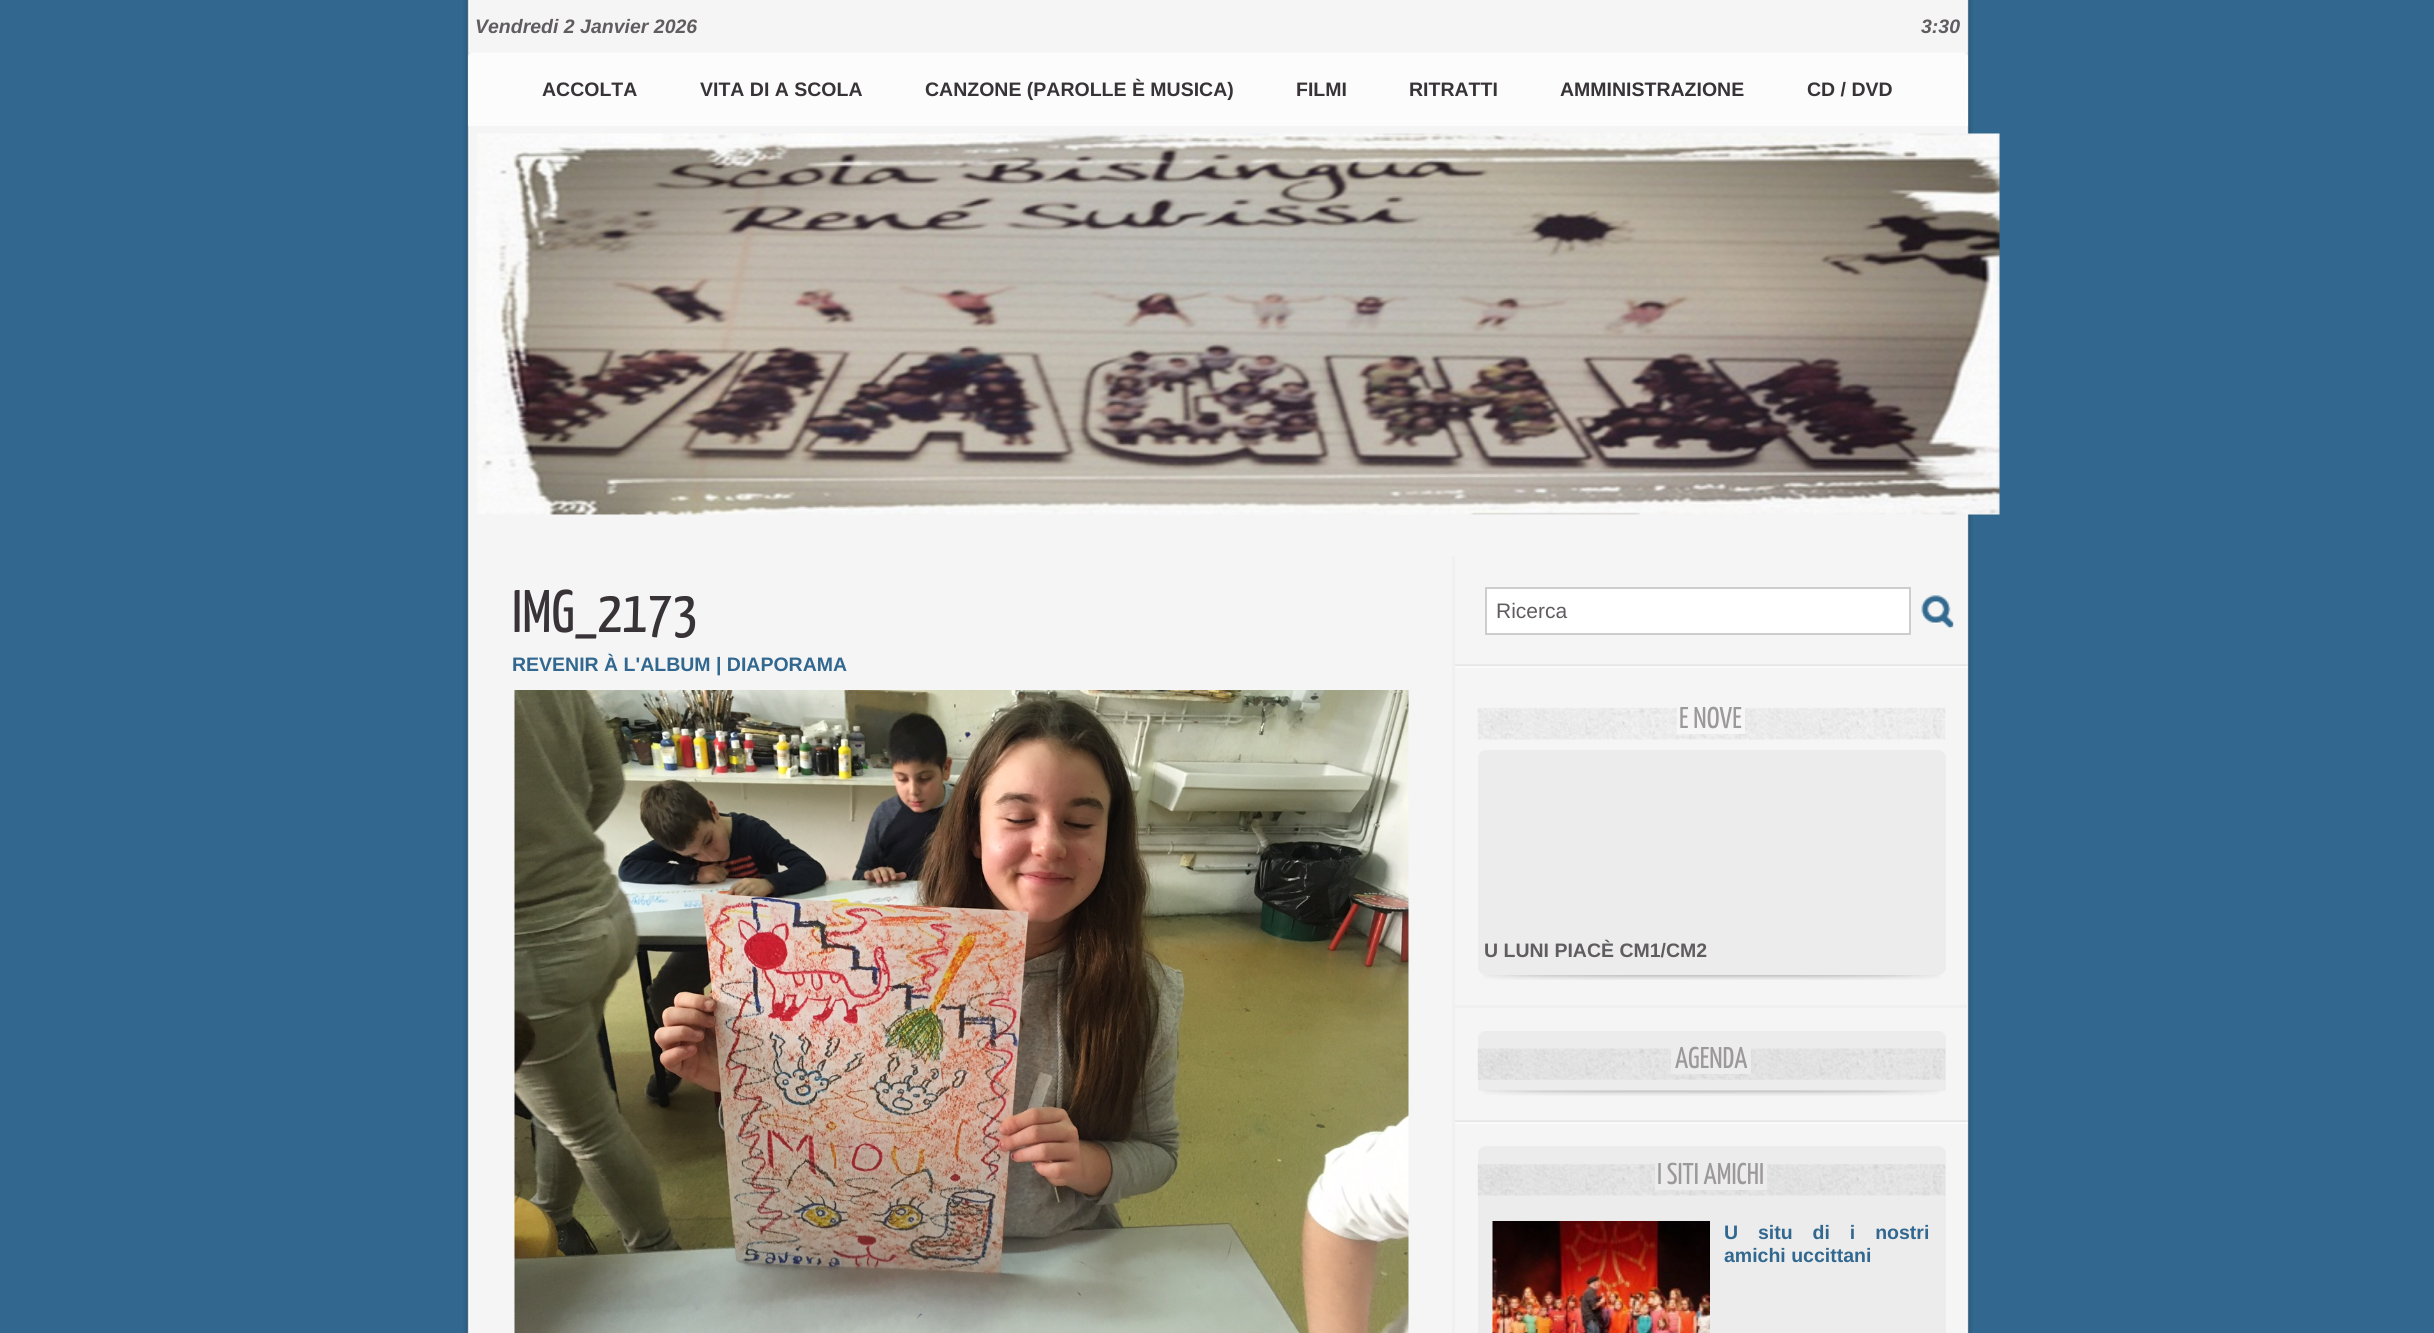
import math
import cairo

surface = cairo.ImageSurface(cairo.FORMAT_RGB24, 2434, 1333)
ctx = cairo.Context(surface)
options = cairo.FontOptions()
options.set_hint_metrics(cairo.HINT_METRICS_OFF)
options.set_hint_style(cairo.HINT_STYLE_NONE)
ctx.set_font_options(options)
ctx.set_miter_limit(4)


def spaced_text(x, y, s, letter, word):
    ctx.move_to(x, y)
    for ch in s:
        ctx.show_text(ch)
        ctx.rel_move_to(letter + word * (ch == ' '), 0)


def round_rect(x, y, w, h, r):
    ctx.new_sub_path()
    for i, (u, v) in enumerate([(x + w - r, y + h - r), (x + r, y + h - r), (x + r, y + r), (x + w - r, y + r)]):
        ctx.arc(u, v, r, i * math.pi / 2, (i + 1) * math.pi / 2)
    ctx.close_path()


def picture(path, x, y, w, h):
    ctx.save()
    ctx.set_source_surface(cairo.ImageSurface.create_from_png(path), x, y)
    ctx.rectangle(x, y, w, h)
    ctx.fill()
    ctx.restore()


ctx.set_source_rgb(0.196, 0.408, 0.561)
ctx.paint()
picture("img1.png", 463, 0, 1510, 1333)
ctx.select_font_face("Liberation Sans", cairo.FONT_SLANT_ITALIC, cairo.FONT_WEIGHT_BOLD)
ctx.set_font_size(19.5)
ctx.set_source_rgb(0.376, 0.361, 0.373)
ctx.move_to(475, 33)
ctx.show_text("Vendredi 2 Janvier 2026")
ctx.move_to(1921, 33)
ctx.show_text("3:30")
picture("img2.png", 468, 52, 1500, 74)
ctx.select_font_face("Liberation Sans", cairo.FONT_SLANT_NORMAL, cairo.FONT_WEIGHT_BOLD)
ctx.set_source_rgb(0.22, 0.2, 0.216)
ctx.move_to(542, 96)
ctx.show_text("ACCOLTA")
ctx.move_to(700, 96)
ctx.show_text("VITA DI A SCOLA")
ctx.move_to(925, 96)
ctx.show_text("CANZONE (PAROLLE È MUSICA)")
ctx.move_to(1296, 96)
ctx.show_text("FILMI")
ctx.move_to(1409, 96)
ctx.show_text("RITRATTI")
ctx.move_to(1560, 96)
ctx.show_text("AMMINISTRAZIONE")
ctx.move_to(1807, 96)
ctx.show_text("CD / DVD")
picture("img3.png", 476, 133, 1524, 382)
ctx.set_source_rgb(0.941, 0.941, 0.941)
ctx.rectangle(1452, 556, 3, 777)
ctx.fill()
ctx.select_font_face("Yanone Kaffeesatz ExtraLight")
ctx.set_font_size(60)
ctx.set_source_rgb(0.22, 0.2, 0.216)
ctx.move_to(512, 632)
ctx.show_text("IMG_2173")
ctx.select_font_face("Liberation Sans", cairo.FONT_SLANT_NORMAL, cairo.FONT_WEIGHT_BOLD)
ctx.set_font_size(19.5)
ctx.set_source_rgb(0.196, 0.408, 0.561)
ctx.move_to(512, 671)
ctx.show_text("REVENIR À L'ALBUM | DIAPORAMA")
picture("img4.png", 514, 690, 895, 643)
ctx.set_source_rgb(1, 1, 1)
ctx.rectangle(1486, 588, 424, 46)
ctx.fill_preserve()
ctx.set_source_rgb(0.808, 0.8, 0.804)
ctx.stroke()
ctx.select_font_face("Liberation Sans")
ctx.set_font_size(21)
ctx.set_source_rgb(0.376, 0.361, 0.373)
ctx.move_to(1496, 618)
ctx.show_text("Ricerca")
picture("img5.png", 1921, 595, 33, 34)
picture("img6.png", 1455, 664, 513, 4)
picture("img7.png", 1477, 707, 469, 33)
ctx.set_source_rgb(0.961, 0.961, 0.961)
ctx.rectangle(1677, 707, 68, 27)
ctx.fill()
ctx.select_font_face("Yanone Kaffeesatz ExtraLight")
ctx.set_font_size(30)
ctx.set_source_rgb(0.612, 0.6, 0.608)
ctx.move_to(1679, 728)
ctx.show_text("E NOVE")
ctx.set_source_rgb(0.922, 0.922, 0.922)
round_rect(1478, 750, 468, 225, 8)
ctx.fill()
ctx.select_font_face("Liberation Sans", cairo.FONT_SLANT_NORMAL, cairo.FONT_WEIGHT_BOLD)
ctx.set_font_size(19.5)
ctx.set_source_rgb(0.376, 0.361, 0.373)
ctx.move_to(1484, 957)
ctx.show_text("U LUNI PIACÈ CM1/CM2")
picture("img8.png", 1483, 975, 457, 5)
ctx.set_source_rgba(0.929, 0.929, 0.929, 0.6)
ctx.rectangle(1455, 1005, 513, 3)
ctx.fill()
ctx.set_source_rgb(0.922, 0.922, 0.922)
ctx.new_path()
ctx.move_to(1486, 1031)
ctx.line_to(1938, 1031)
ctx.curve_to(1942.5, 1031, 1946, 1034.5, 1946, 1039)
ctx.line_to(1946, 1091)
ctx.line_to(1478, 1091)
ctx.line_to(1478, 1039)
ctx.curve_to(1478, 1034.5, 1481.5, 1031, 1486, 1031)
ctx.close_path()
ctx.fill()
picture("img9.png", 1477, 1048, 469, 32)
ctx.rectangle(1671, 1048, 80, 26)
ctx.fill()
ctx.select_font_face("Yanone Kaffeesatz ExtraLight")
ctx.set_font_size(30)
ctx.set_source_rgb(0.612, 0.6, 0.608)
ctx.move_to(1675, 1068)
ctx.show_text("AGENDA")
picture("img10.png", 1483, 1090, 457, 6)
picture("img6.png", 1455, 1120, 513, 4)
ctx.set_source_rgb(0.922, 0.922, 0.922)
ctx.new_path()
ctx.move_to(1486, 1146)
ctx.line_to(1938, 1146)
ctx.curve_to(1942.5, 1146, 1946, 1149.5, 1946, 1154)
ctx.line_to(1946, 1206)
ctx.line_to(1478, 1206)
ctx.line_to(1478, 1154)
ctx.curve_to(1478, 1149.5, 1481.5, 1146, 1486, 1146)
ctx.close_path()
ctx.fill()
picture("img11.png", 1477, 1164, 469, 32)
ctx.rectangle(1655, 1164, 112, 26)
ctx.fill()
ctx.set_source_rgb(0.612, 0.6, 0.608)
ctx.move_to(1657, 1184)
ctx.show_text("I SITI AMICHI")
ctx.set_source_rgb(0.922, 0.922, 0.922)
ctx.rectangle(1478, 1206, 468, 127)
ctx.fill()
picture("img12.png", 1492, 1221, 218, 112)
ctx.select_font_face("Liberation Sans", cairo.FONT_SLANT_NORMAL, cairo.FONT_WEIGHT_BOLD)
ctx.set_font_size(19.5)
ctx.set_source_rgb(0.196, 0.408, 0.561)
spaced_text(1724, 1239, "U situ di i nostri", 0, 14.5)
ctx.move_to(1724, 1262)
ctx.show_text("amichi uccittani")
surface.write_to_png("page.png")
